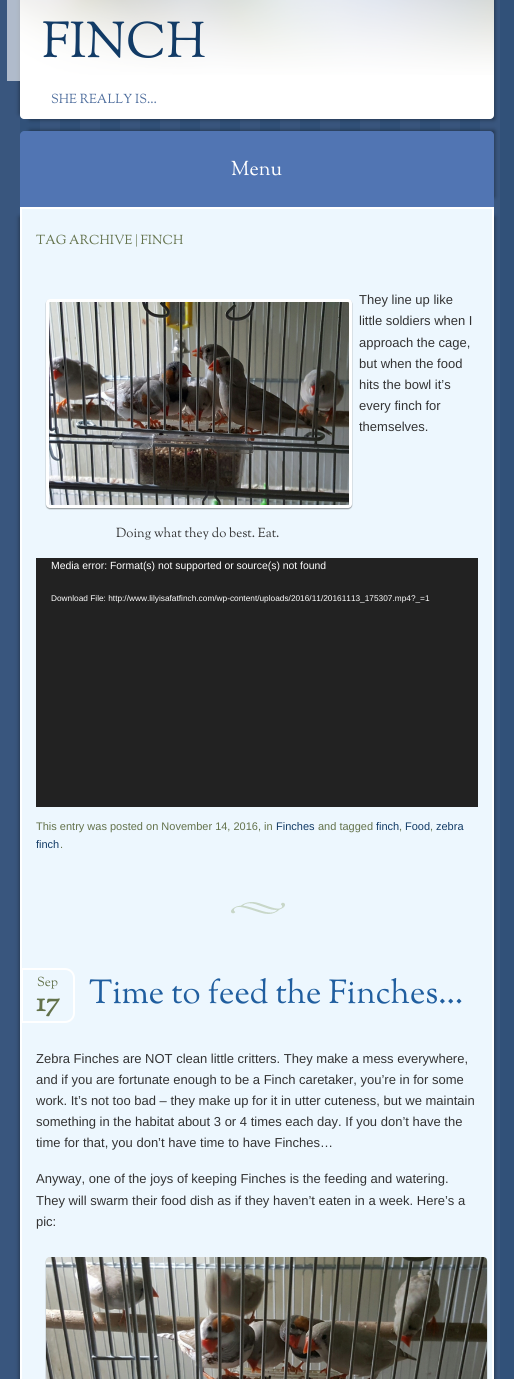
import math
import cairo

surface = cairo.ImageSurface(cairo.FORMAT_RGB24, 514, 1379)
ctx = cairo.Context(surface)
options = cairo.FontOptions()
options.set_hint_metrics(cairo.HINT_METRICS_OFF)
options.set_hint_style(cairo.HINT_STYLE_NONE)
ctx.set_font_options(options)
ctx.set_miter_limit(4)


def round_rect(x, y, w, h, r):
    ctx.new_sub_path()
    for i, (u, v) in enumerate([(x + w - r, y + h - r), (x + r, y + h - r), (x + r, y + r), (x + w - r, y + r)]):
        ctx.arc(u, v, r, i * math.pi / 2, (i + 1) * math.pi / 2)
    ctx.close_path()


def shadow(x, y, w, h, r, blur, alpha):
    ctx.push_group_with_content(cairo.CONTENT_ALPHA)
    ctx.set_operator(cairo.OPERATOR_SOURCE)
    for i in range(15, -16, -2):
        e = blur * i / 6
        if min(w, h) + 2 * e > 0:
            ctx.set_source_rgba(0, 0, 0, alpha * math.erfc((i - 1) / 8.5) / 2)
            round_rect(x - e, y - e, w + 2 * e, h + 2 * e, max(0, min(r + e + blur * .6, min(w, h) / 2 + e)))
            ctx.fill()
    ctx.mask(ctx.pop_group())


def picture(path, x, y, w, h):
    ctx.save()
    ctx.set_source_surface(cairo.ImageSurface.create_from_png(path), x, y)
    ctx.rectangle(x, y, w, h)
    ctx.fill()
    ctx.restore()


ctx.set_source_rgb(1, 1, 1)
ctx.paint()
picture("img1.png", 0, 0, 514, 1379)
ctx.set_source_rgb(0, 0, 0)
shadow(20, -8, 464, 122, 0, 2.5, 0.5)
shadow(30, -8, 464, 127, 0, 2.5, 0.5)
ctx.set_source_rgb(1, 1, 1)
round_rect(20, -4, 474, 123, 4)
ctx.fill()
picture("img2.png", 20, 0, 474, 75)
ctx.set_source_rgba(1, 1, 1, 0.6)
ctx.rectangle(7, 0, 487, 81)
ctx.fill()
ctx.select_font_face("Sorts Mill Goudy")
ctx.set_font_size(50)
ctx.set_source_rgb(0.071, 0.231, 0.4)
ctx.move_to(42, 57)
ctx.show_text("FINCH")
ctx.set_font_size(13)
ctx.set_source_rgb(0.314, 0.435, 0.62)
ctx.move_to(51, 103)
ctx.show_text("SHE REALLY IS…")
ctx.set_source_rgb(0, 0, 0)
shadow(30, 131, 464, 66, 0, 2.5, 0.5)
ctx.set_source_rgb(0.318, 0.459, 0.702)
ctx.new_path()
ctx.move_to(24, 131)
ctx.line_to(490, 131)
ctx.curve_to(492, 131, 494, 133, 494, 135)
ctx.line_to(494, 207)
ctx.line_to(20, 207)
ctx.line_to(20, 135)
ctx.curve_to(20, 133, 22, 131, 24, 131)
ctx.close_path()
ctx.fill()
ctx.set_font_size(20)
ctx.set_source_rgb(1, 1, 1)
ctx.move_to(231, 175)
ctx.show_text("Menu")
ctx.set_source_rgb(0, 0, 0)
shadow(20, 217, 464, 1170, 0, 2.5, 0.5)
shadow(30, 217, 464, 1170, 0, 2.5, 0.5)
ctx.set_source_rgb(0.929, 0.965, 0.996)
ctx.rectangle(21, 208, 472, 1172)
ctx.fill_preserve()
ctx.set_source_rgb(1, 1, 1)
ctx.stroke()
ctx.set_font_size(13)
ctx.set_source_rgb(0.388, 0.447, 0.294)
ctx.move_to(36, 244)
ctx.show_text("TAG ARCHIVE | FINCH")
picture("img3.png", 231, 902, 54, 12)
ctx.select_font_face("Liberation Sans")
ctx.set_source_rgb(0.2, 0.2, 0.2)
ctx.move_to(359, 304)
ctx.show_text("They line up like")
ctx.move_to(359, 325)
ctx.show_text("little soldiers when I")
ctx.move_to(359, 347)
ctx.show_text("approach the cage,")
ctx.move_to(359, 368)
ctx.show_text("but when the food")
ctx.move_to(359, 389)
ctx.show_text("hits the bowl it’s")
ctx.move_to(359, 410)
ctx.show_text("every finch for")
ctx.move_to(359, 431)
ctx.show_text("themselves.")
ctx.set_source_rgb(0, 0, 0)
shadow(46, 300, 306, 209, 4, 0.5, 0.4)
ctx.set_source_rgb(1, 1, 1)
round_rect(46, 299, 306, 209, 4)
ctx.fill()
picture("img4.png", 49, 302, 300, 203)
ctx.select_font_face("Sorts Mill Goudy")
ctx.set_source_rgb(0.2, 0.2, 0.2)
ctx.move_to(116, 537)
ctx.show_text("Doing what they do best. Eat.")
ctx.set_source_rgb(0.133, 0.133, 0.133)
ctx.rectangle(36, 558, 442, 249)
ctx.fill()
ctx.select_font_face("Liberation Sans")
ctx.set_font_size(10.4)
ctx.set_source_rgb(1, 1, 1)
ctx.move_to(51, 569)
ctx.show_text("Media error: Format(s) not supported or source(s) not found")
ctx.set_font_size(8.3)
ctx.move_to(51, 601)
ctx.show_text("Download File: http://www.lilyisafatfinch.com/wp-content/uploads/2016/11/20161113_175307.mp4?_=1")
ctx.set_font_size(11)
ctx.set_source_rgb(0.388, 0.447, 0.294)
ctx.move_to(36, 830)
ctx.show_text("This entry was posted on November 14, 2016, in")
ctx.set_source_rgb(0.071, 0.231, 0.4)
ctx.move_to(276, 830)
ctx.show_text("Finches")
ctx.set_source_rgb(0.388, 0.447, 0.294)
ctx.move_to(318, 830)
ctx.show_text("and tagged")
ctx.set_source_rgb(0.071, 0.231, 0.4)
ctx.move_to(376, 830)
ctx.show_text("finch")
ctx.set_source_rgb(0.388, 0.447, 0.294)
ctx.move_to(399, 830)
ctx.show_text(",")
ctx.set_source_rgb(0.071, 0.231, 0.4)
ctx.move_to(405, 830)
ctx.show_text("Food")
ctx.set_source_rgb(0.388, 0.447, 0.294)
ctx.move_to(430, 830)
ctx.show_text(",")
ctx.set_source_rgb(0.071, 0.231, 0.4)
ctx.move_to(436, 830)
ctx.show_text("zebra")
ctx.move_to(36, 848)
ctx.show_text("finch")
ctx.set_source_rgb(0.388, 0.447, 0.294)
ctx.move_to(60, 848)
ctx.show_text(".")
ctx.set_source_rgb(0.929, 0.965, 0.996)
ctx.new_path()
ctx.move_to(22, 969)
ctx.line_to(65, 969)
ctx.curve_to(70, 969, 74, 973, 74, 978)
ctx.line_to(74, 1013)
ctx.curve_to(74, 1018, 70, 1022, 65, 1022)
ctx.line_to(22, 1022)
ctx.close_path()
ctx.fill_preserve()
ctx.set_source_rgb(1, 1, 1)
ctx.stroke()
ctx.select_font_face("Sorts Mill Goudy")
ctx.set_font_size(13)
ctx.set_source_rgb(0.388, 0.447, 0.294)
ctx.move_to(37, 986)
ctx.show_text("Sep")
ctx.select_font_face("Sorts Mill Goudy", cairo.FONT_SLANT_NORMAL, cairo.FONT_WEIGHT_BOLD)
ctx.set_font_size(28)
ctx.move_to(36, 1011)
ctx.show_text("17")
ctx.select_font_face("Sorts Mill Goudy")
ctx.set_font_size(33)
ctx.set_source_rgb(0.125, 0.369, 0.624)
ctx.move_to(89, 1003)
ctx.show_text("Time to feed the Finches…")
ctx.select_font_face("Liberation Sans")
ctx.set_font_size(13)
ctx.set_source_rgb(0.2, 0.2, 0.2)
ctx.move_to(36, 1063)
ctx.show_text("Zebra Finches are NOT clean little critters. They make a mess everywhere,")
ctx.move_to(36, 1084)
ctx.show_text("and if you are fortunate enough to be a Finch caretaker, you’re in for some")
ctx.move_to(36, 1105)
ctx.show_text("work. It’s not too bad – they make up for it in utter cuteness, but we maintain")
ctx.move_to(36, 1126)
ctx.show_text("something in the habitat about 3 or 4 times each day. If you don’t have the")
ctx.move_to(36, 1147)
ctx.show_text("time for that, you don’t have time to have Finches…")
ctx.move_to(36, 1183)
ctx.show_text("Anyway, one of the joys of keeping Finches is the feeding and watering.")
ctx.move_to(36, 1205)
ctx.show_text("They will swarm their food dish as if they haven’t eaten in a week. Here’s a")
ctx.move_to(36, 1226)
ctx.show_text("pic:")
ctx.set_source_rgb(0, 0, 0)
shadow(46, 1258, 441, 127, 4, 0.5, 0.4)
picture("img5.png", 46, 1257, 441, 122)
surface.write_to_png("page.png")
